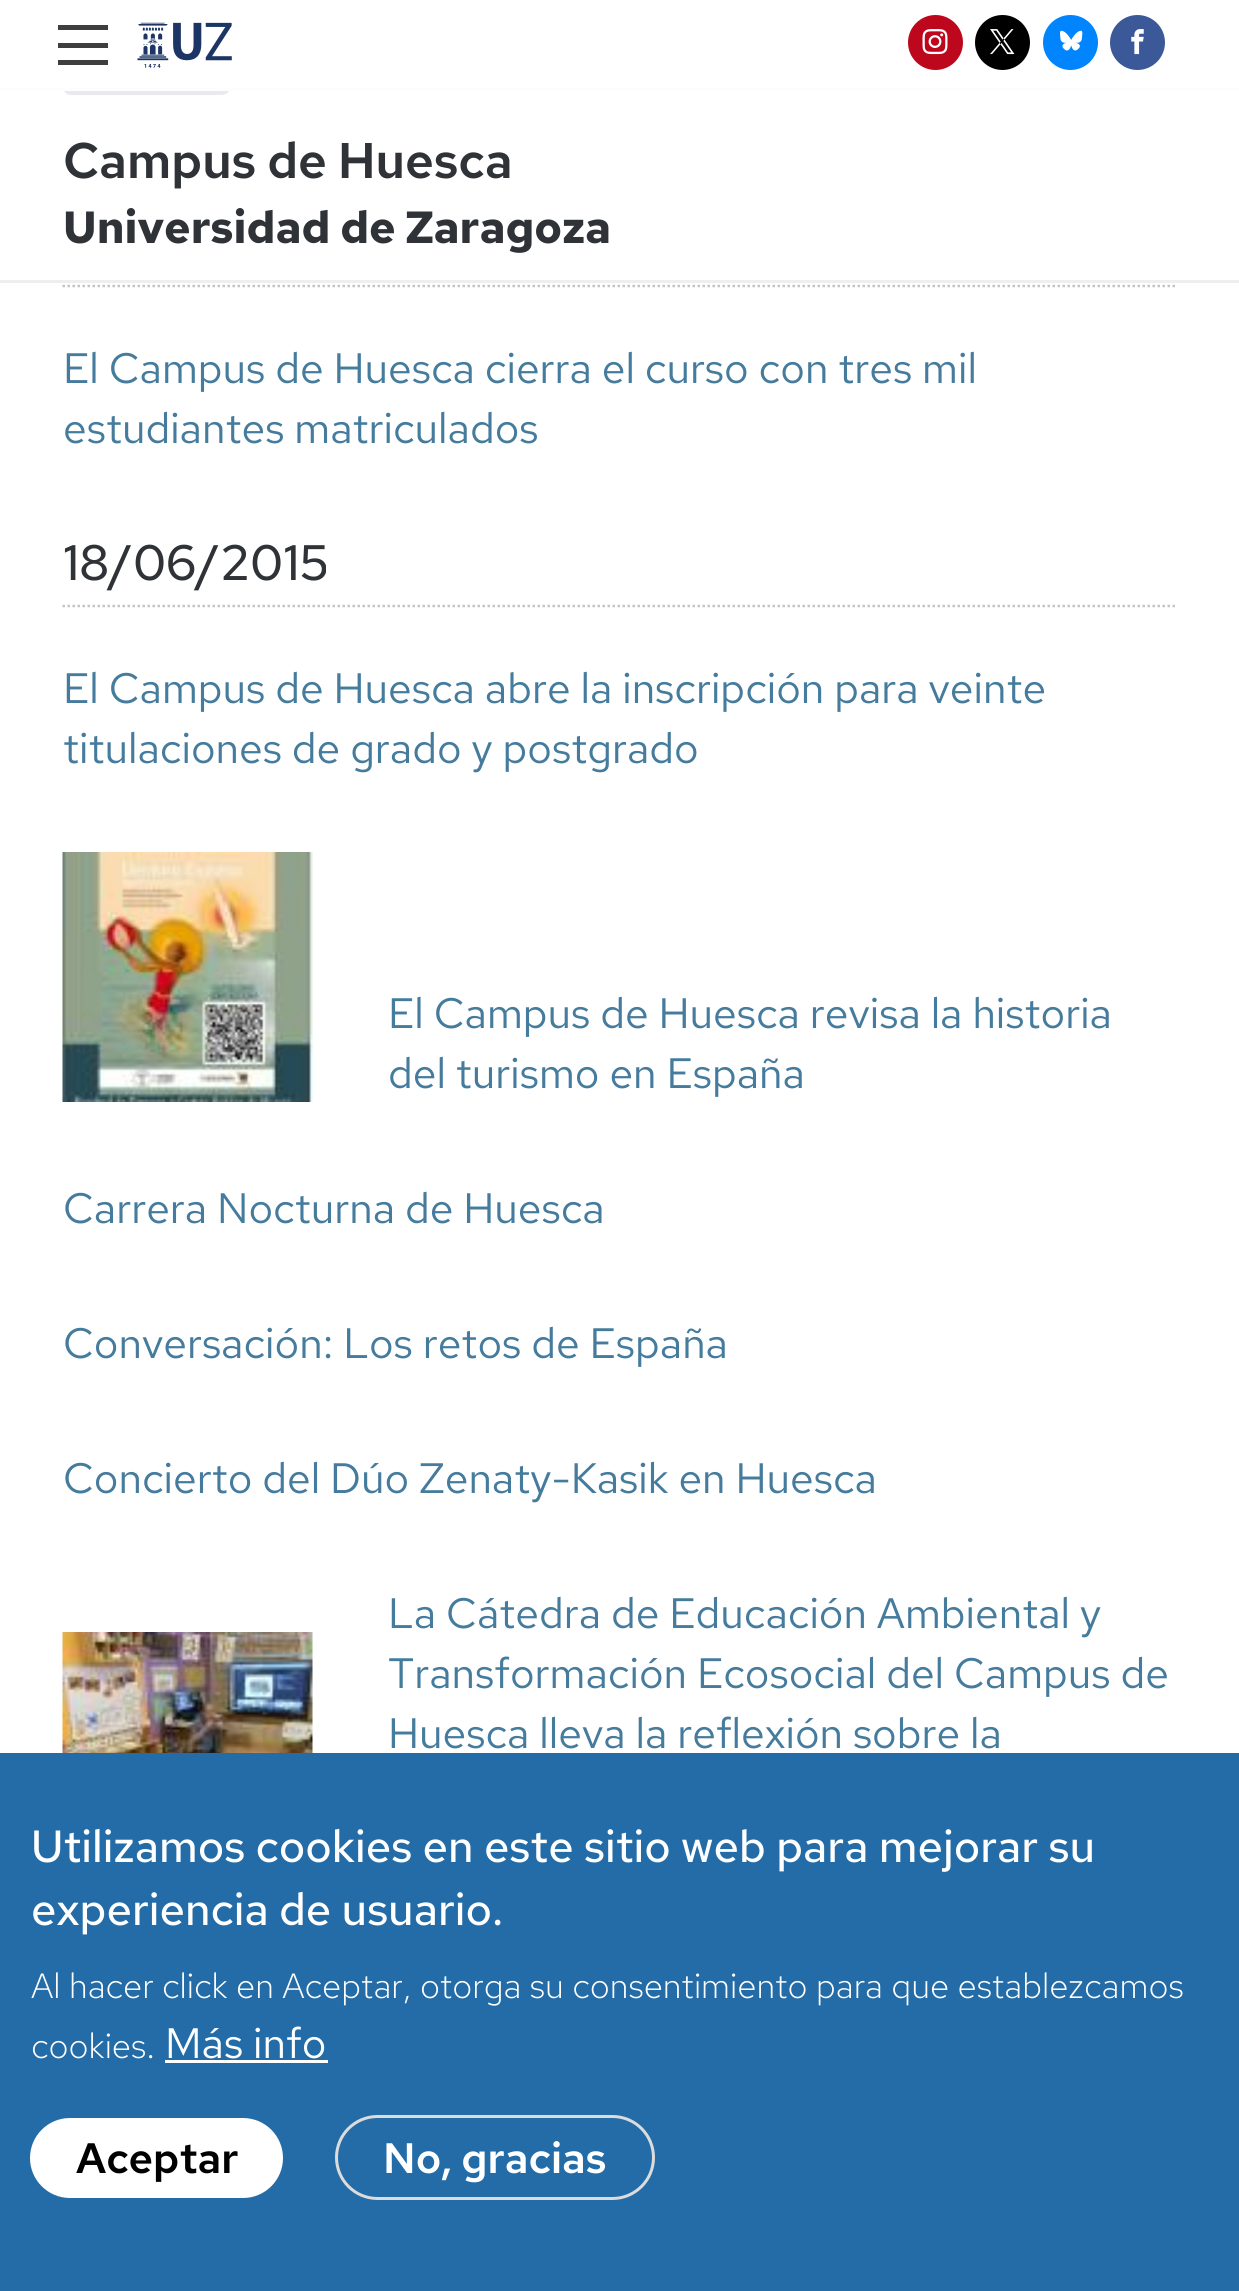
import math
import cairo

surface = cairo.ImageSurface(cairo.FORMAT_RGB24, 1239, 2291)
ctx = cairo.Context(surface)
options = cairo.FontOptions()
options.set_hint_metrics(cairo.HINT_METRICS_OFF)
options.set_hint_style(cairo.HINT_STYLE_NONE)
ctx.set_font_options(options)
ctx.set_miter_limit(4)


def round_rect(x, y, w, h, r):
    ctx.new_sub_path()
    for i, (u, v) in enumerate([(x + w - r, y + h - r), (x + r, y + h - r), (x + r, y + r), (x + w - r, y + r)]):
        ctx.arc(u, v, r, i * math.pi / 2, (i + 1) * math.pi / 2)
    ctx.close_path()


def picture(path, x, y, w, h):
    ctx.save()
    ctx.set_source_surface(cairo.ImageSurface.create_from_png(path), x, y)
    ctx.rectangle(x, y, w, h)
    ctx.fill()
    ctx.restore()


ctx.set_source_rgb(1, 1, 1)
ctx.paint()
ctx.set_source_rgb(0.165, 0.251, 0.408)
round_rect(64.5, 11.5, 164, 82, 6.5)
ctx.fill_preserve()
ctx.set_line_width(3)
ctx.stroke()
ctx.set_source_rgb(1, 1, 1)
ctx.rectangle(63, 10, 167, 78)
ctx.fill()
ctx.set_source_rgb(0.933, 0.933, 0.933)
ctx.rectangle(0, 88, 1239, 3)
ctx.fill()
ctx.set_source_rgb(0.243, 0.243, 0.243)
ctx.rectangle(58, 43, 50, 5)
ctx.fill()
ctx.rectangle(58, 25, 50, 5)
ctx.fill()
ctx.rectangle(58, 60, 50, 5)
ctx.fill()
picture("img1.png", 137, 22, 95, 46)
ctx.set_source_rgba(1, 1, 1, 0.89)
ctx.rectangle(0, 88, 1239, 7)
ctx.fill()
ctx.set_source_rgb(0.933, 0.933, 0.933)
ctx.rectangle(0, 280, 1239, 3)
ctx.fill()
ctx.set_source_rgb(0.741, 0.031, 0.11)
ctx.arc(935.5, 42.5, 27.5, 0, 2 * math.pi)
ctx.fill()
picture("img2.png", 922, 29, 26, 26)
ctx.set_source_rgb(0, 0, 0)
ctx.arc(1002.5, 42.5, 27.5, 0, 2 * math.pi)
ctx.fill()
picture("img3.png", 990, 29, 25, 26)
ctx.set_source_rgb(0, 0.522, 1)
ctx.arc(1070.5, 42.5, 27.5, 0, 2 * math.pi)
ctx.fill()
picture("img4.png", 1060, 30, 23, 21)
ctx.set_source_rgb(0.231, 0.349, 0.596)
ctx.arc(1137.5, 42.5, 27.5, 0, 2 * math.pi)
ctx.fill()
picture("img5.png", 1131, 29, 13, 26)
ctx.select_font_face("Red Hat Text SemiBold")
ctx.set_font_size(50)
ctx.set_source_rgb(0.184, 0.2, 0.216)
ctx.move_to(63, 178)
ctx.show_text("Campus de Huesca")
ctx.select_font_face("Red Hat Text", cairo.FONT_SLANT_NORMAL, cairo.FONT_WEIGHT_BOLD)
ctx.set_font_size(45)
ctx.move_to(63, 243)
ctx.show_text("Universidad de Zaragoza")
ctx.new_path()
ctx.move_to(62.5, 286)
ctx.line_to(1177.5, 286)
ctx.set_source_rgb(0.769, 0.769, 0.769)
ctx.set_line_width(2.5)
ctx.set_dash([2.5, 2.5])
ctx.stroke()
ctx.select_font_face("Red Hat Text")
ctx.set_font_size(42.5)
ctx.set_source_rgb(0.271, 0.482, 0.616)
ctx.move_to(63, 383)
ctx.show_text("El Campus de Huesca cierra el curso con tres mil")
ctx.move_to(63, 443)
ctx.show_text("estudiantes matriculados")
ctx.new_path()
ctx.move_to(62.5, 606)
ctx.line_to(1177.5, 606)
ctx.set_source_rgb(0.769, 0.769, 0.769)
ctx.stroke()
ctx.select_font_face("Red Hat Text Medium")
ctx.set_font_size(49.75)
ctx.set_source_rgb(0.184, 0.2, 0.216)
ctx.move_to(63, 580)
ctx.show_text("18/06/2015")
ctx.select_font_face("Red Hat Text")
ctx.set_font_size(42.5)
ctx.set_source_rgb(0.271, 0.482, 0.616)
ctx.move_to(63, 703)
ctx.show_text("El Campus de Huesca abre la inscripción para veinte")
ctx.move_to(63, 763)
ctx.show_text("titulaciones de grado y postgrado")
picture("img6.png", 62, 852, 251, 250)
ctx.move_to(388, 1028)
ctx.show_text("El Campus de Huesca revisa la historia")
ctx.move_to(388, 1088)
ctx.show_text("del turismo en España")
ctx.move_to(63, 1223)
ctx.show_text("Carrera Nocturna de Huesca")
ctx.move_to(63, 1358)
ctx.show_text("Conversación: Los retos de España")
ctx.move_to(63, 1493)
ctx.show_text("Concierto del Dúo Zenaty-Kasik en Huesca")
picture("img7.png", 62, 1632, 251, 121)
ctx.move_to(388, 1628)
ctx.show_text("La Cátedra de Educación Ambiental y")
ctx.move_to(388, 1688)
ctx.show_text("Transformación Ecosocial del Campus de")
ctx.move_to(388, 1748)
ctx.show_text("Huesca lleva la reflexión sobre la")
ctx.set_source_rgb(0.137, 0.424, 0.655)
ctx.rectangle(0, 1753, 1239, 538)
ctx.fill()
ctx.select_font_face("Red Hat Text Medium")
ctx.set_font_size(45)
ctx.set_source_rgb(1, 1, 1)
ctx.move_to(31, 1862)
ctx.show_text("Utilizamos cookies en este sitio web para mejorar su")
ctx.move_to(31, 1925)
ctx.show_text("experiencia de usuario.")
ctx.select_font_face("Red Hat Text Light")
ctx.set_font_size(35)
ctx.move_to(31, 1998)
ctx.show_text("Al hacer click en Aceptar, otorga su consentimiento para que establezcamos")
ctx.move_to(31, 2058)
ctx.show_text("cookies.")
ctx.select_font_face("Red Hat Text")
ctx.set_font_size(42.5)
ctx.move_to(165, 2058)
ctx.show_text("Más info")
ctx.rectangle(165, 2060, 163, 3)
ctx.fill()
round_rect(30, 2118, 253, 80, 40)
ctx.fill()
ctx.select_font_face("Red Hat Text SemiBold")
ctx.set_source_rgb(0, 0, 0)
ctx.move_to(76, 2173)
ctx.show_text("Aceptar")
round_rect(336.5, 2116.5, 317, 82, 41)
ctx.set_source_rgb(0.863, 0.863, 0.863)
ctx.set_line_width(3)
ctx.set_dash([])
ctx.stroke()
ctx.set_source_rgb(1, 1, 1)
ctx.move_to(383, 2173)
ctx.show_text("No, gracias")
surface.write_to_png("page.png")
